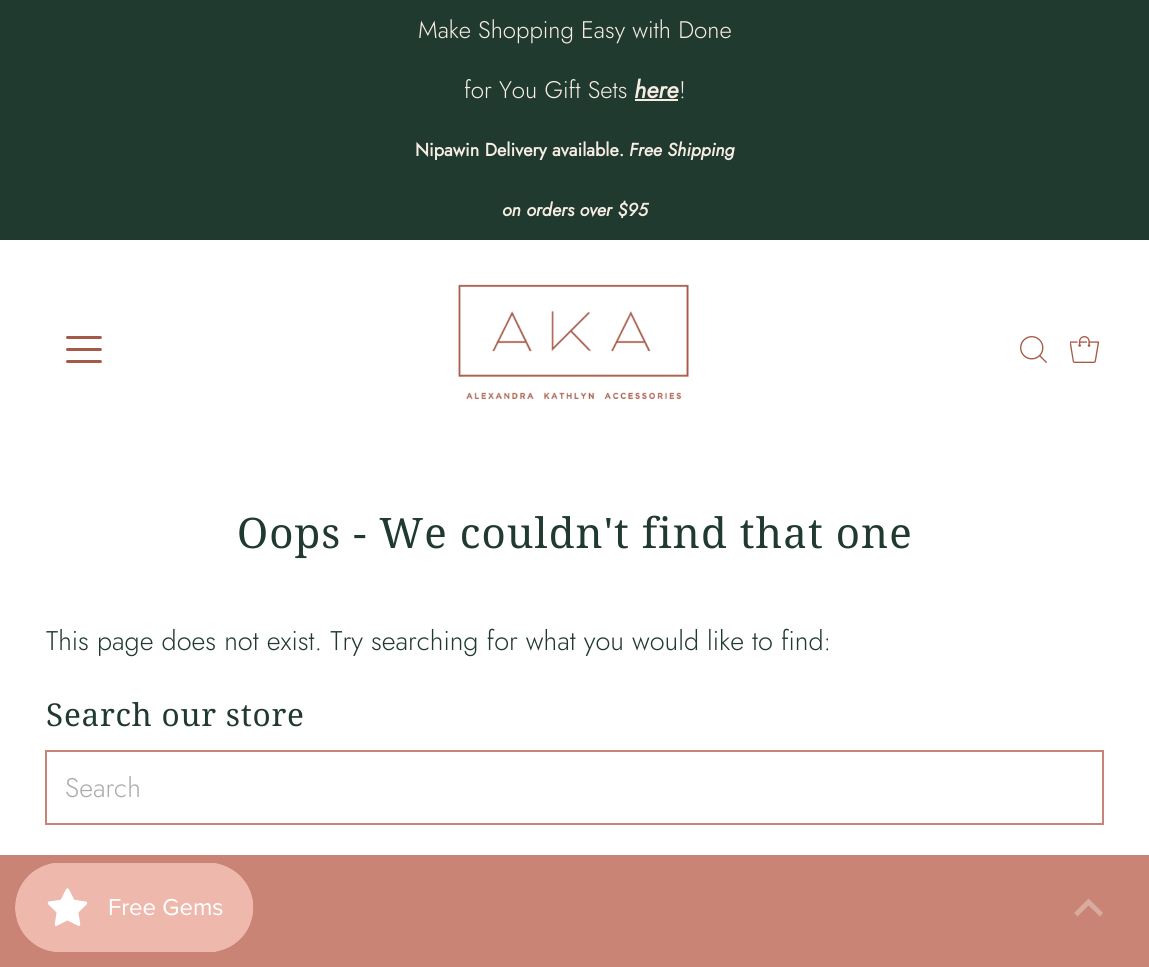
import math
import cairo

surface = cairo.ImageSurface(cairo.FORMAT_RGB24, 1149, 967)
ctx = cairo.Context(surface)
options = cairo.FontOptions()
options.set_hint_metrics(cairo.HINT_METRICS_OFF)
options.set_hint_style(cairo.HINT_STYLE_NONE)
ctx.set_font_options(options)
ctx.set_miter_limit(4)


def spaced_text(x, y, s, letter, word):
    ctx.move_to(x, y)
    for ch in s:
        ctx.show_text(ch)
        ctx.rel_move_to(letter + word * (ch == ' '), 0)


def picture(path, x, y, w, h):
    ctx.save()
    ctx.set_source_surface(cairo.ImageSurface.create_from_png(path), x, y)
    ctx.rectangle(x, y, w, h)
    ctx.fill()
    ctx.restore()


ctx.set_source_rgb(1, 1, 1)
ctx.paint()
ctx.set_source_rgb(0.129, 0.227, 0.188)
ctx.rectangle(0, 0, 1149, 240)
ctx.fill()
ctx.select_font_face("Jost Light")
ctx.set_font_size(24)
ctx.set_source_rgb(0.961, 0.925, 0.886)
ctx.move_to(418, 38)
ctx.show_text("Make Shopping Easy with Done")
ctx.move_to(464, 98)
ctx.show_text("for You Gift Sets")
ctx.select_font_face("Jost", cairo.FONT_SLANT_ITALIC, cairo.FONT_WEIGHT_BOLD)
ctx.move_to(634, 98)
ctx.show_text("here")
ctx.rectangle(635, 99, 43, 2)
ctx.fill()
ctx.select_font_face("Jost Light")
ctx.move_to(679, 98)
ctx.show_text("!")
ctx.select_font_face("Jost", cairo.FONT_SLANT_NORMAL, cairo.FONT_WEIGHT_BOLD)
ctx.set_font_size(18.1)
ctx.move_to(415, 156)
ctx.show_text("Nipawin Delivery available.")
ctx.select_font_face("Jost", cairo.FONT_SLANT_ITALIC, cairo.FONT_WEIGHT_BOLD)
ctx.move_to(629, 156)
ctx.show_text("Free Shipping")
ctx.move_to(502, 216)
ctx.show_text("on orders over $95")
picture("img1.png", 66, 336, 36, 27)
picture("img2.png", 458, 284, 231, 116)
picture("img3.png", 1020, 336, 27, 27)
picture("img4.png", 1070, 336, 30, 27)
ctx.select_font_face("Noto Serif")
ctx.set_font_size(42)
ctx.set_source_rgb(0.129, 0.227, 0.188)
spaced_text(237, 548, "Oops - We couldn't find that one", 1.05, 0)
ctx.select_font_face("Jost Light")
ctx.set_font_size(27)
ctx.move_to(46, 650)
ctx.show_text("This page does not exist. Try searching for what you would like to find:")
ctx.select_font_face("Noto Serif")
ctx.set_font_size(31.5)
spaced_text(46, 726, "Search our store", 0.75, 0)
ctx.rectangle(46, 751, 1057, 73)
ctx.set_source_rgb(0.788, 0.518, 0.459)
ctx.stroke()
ctx.select_font_face("Jost Light")
ctx.set_font_size(27)
ctx.set_source_rgb(0.667, 0.667, 0.667)
ctx.move_to(65, 797)
ctx.show_text("Search")
ctx.set_source_rgb(0.788, 0.518, 0.459)
ctx.rectangle(0, 855, 1149, 112)
ctx.fill()
ctx.set_source_rgb(0.847, 0.671, 0.616)
ctx.new_path()
ctx.move_to(1088.5, 898.5)
ctx.line_to(1074, 913)
ctx.line_to(1077.5, 916.5)
ctx.line_to(1088.5, 905.5)
ctx.line_to(1100, 916.5)
ctx.line_to(1103, 913)
ctx.close_path()
ctx.fill()
picture("img5.png", 15, 863, 239, 89)
surface.write_to_png("page.png")
